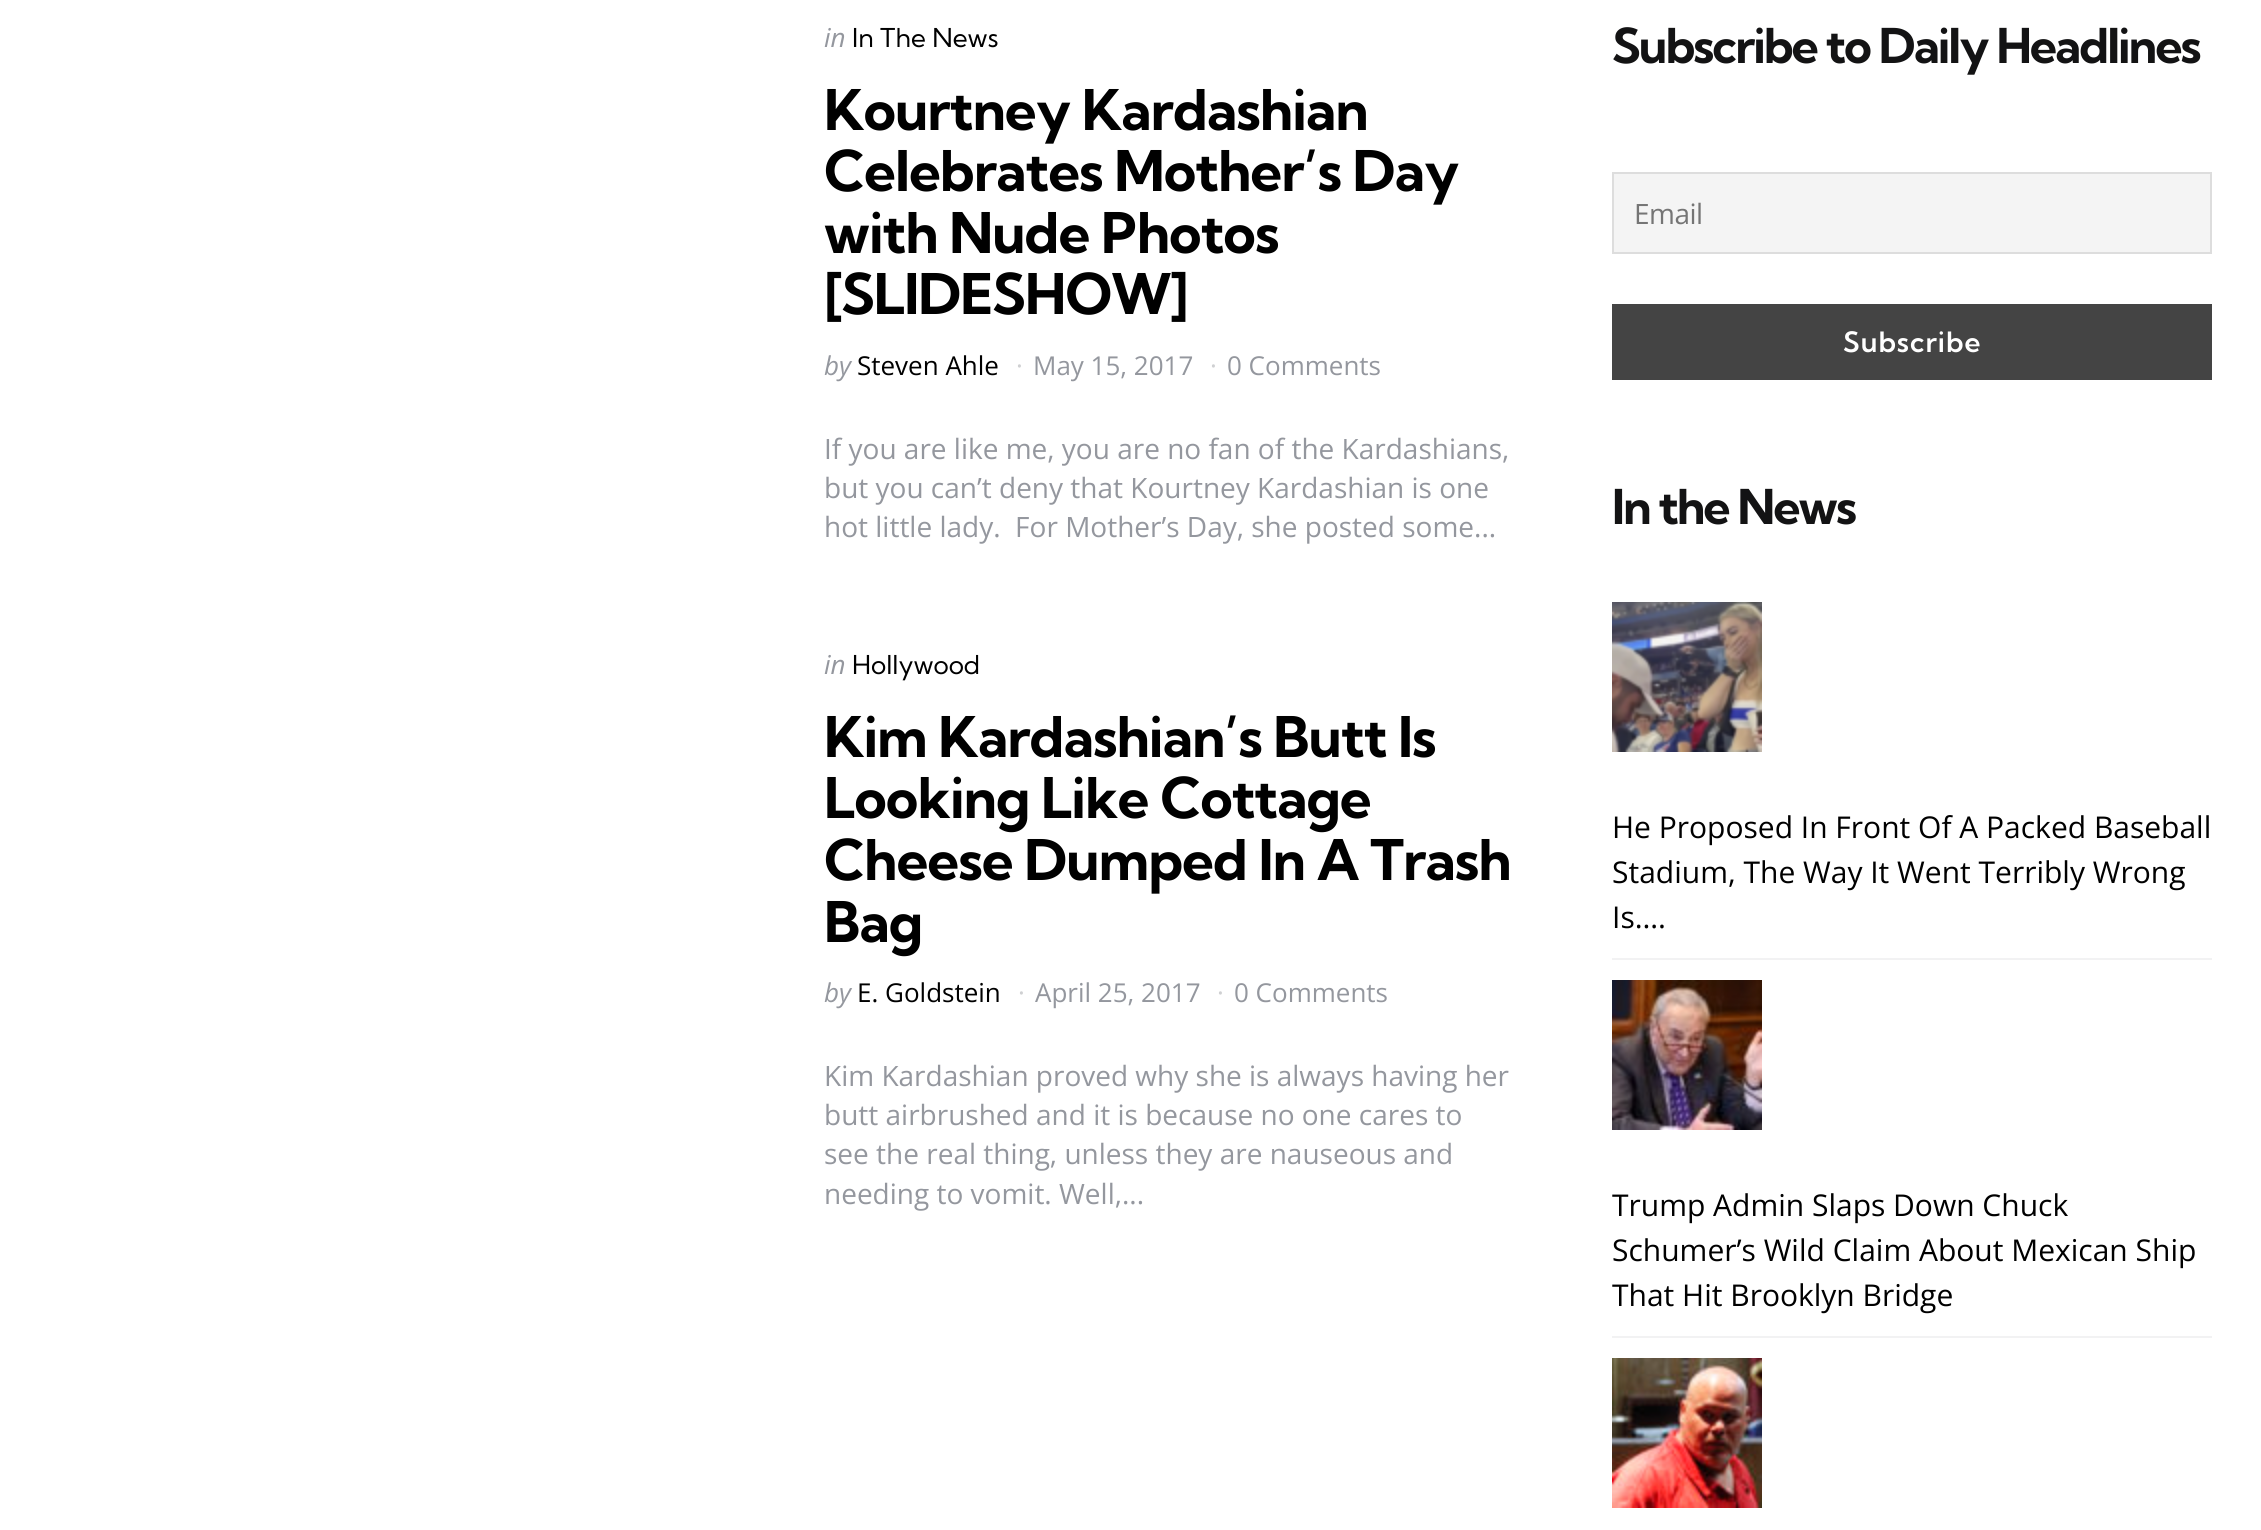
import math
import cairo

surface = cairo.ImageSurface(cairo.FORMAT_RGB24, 2261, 1530)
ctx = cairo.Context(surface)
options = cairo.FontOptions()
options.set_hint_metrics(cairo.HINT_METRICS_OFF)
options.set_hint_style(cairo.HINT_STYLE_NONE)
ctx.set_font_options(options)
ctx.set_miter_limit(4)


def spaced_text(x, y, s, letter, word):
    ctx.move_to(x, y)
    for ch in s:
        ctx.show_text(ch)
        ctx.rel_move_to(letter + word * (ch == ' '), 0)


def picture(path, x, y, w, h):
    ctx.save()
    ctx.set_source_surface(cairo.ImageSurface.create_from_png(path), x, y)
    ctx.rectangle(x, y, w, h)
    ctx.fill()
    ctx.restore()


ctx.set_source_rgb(1, 1, 1)
ctx.paint()
ctx.select_font_face("Open Sans", cairo.FONT_SLANT_ITALIC)
ctx.set_font_size(26)
ctx.set_source_rgb(0.58, 0.592, 0.62)
ctx.move_to(824, 47)
ctx.show_text("in")
ctx.select_font_face("Kumbh Sans")
ctx.set_source_rgb(0, 0, 0)
ctx.move_to(852, 47)
ctx.show_text("In The News")
ctx.select_font_face("Kumbh Sans", cairo.FONT_SLANT_NORMAL, cairo.FONT_WEIGHT_BOLD)
ctx.set_font_size(56)
spaced_text(824, 130, "Kourtney Kardashian", -1, 0)
spaced_text(824, 191, "Celebrates Mother’s Day", -1, 0)
spaced_text(824, 253, "with Nude Photos", -1, 0)
spaced_text(824, 314, "[SLIDESHOW]", -1, 0)
ctx.select_font_face("Open Sans", cairo.FONT_SLANT_ITALIC)
ctx.set_font_size(26)
ctx.set_source_rgb(0.58, 0.592, 0.62)
ctx.move_to(824, 375)
ctx.show_text("by")
ctx.select_font_face("Open Sans")
ctx.set_source_rgb(0, 0, 0)
ctx.move_to(857, 375)
ctx.show_text("Steven Ahle")
ctx.set_source_rgb(0.812, 0.816, 0.824)
ctx.move_to(1016, 375)
ctx.show_text("·")
ctx.set_source_rgb(0.58, 0.592, 0.62)
ctx.move_to(1033, 375)
ctx.show_text("May 15, 2017")
ctx.set_source_rgb(0.812, 0.816, 0.824)
ctx.move_to(1210, 375)
ctx.show_text("·")
ctx.set_source_rgb(0.58, 0.592, 0.62)
ctx.move_to(1227, 375)
ctx.show_text("0 Comments")
ctx.set_font_size(28)
ctx.move_to(824, 459)
ctx.show_text("If you are like me, you are no fan of the Kardashians,")
ctx.move_to(824, 498)
ctx.show_text("but you can’t deny that Kourtney Kardashian is one")
ctx.move_to(824, 537)
ctx.show_text("hot little lady.  For Mother’s Day, she posted some...")
ctx.select_font_face("Open Sans", cairo.FONT_SLANT_ITALIC)
ctx.set_font_size(26)
ctx.move_to(824, 674)
ctx.show_text("in")
ctx.select_font_face("Kumbh Sans")
ctx.set_source_rgb(0, 0, 0)
ctx.move_to(852, 674)
ctx.show_text("Hollywood")
ctx.select_font_face("Kumbh Sans", cairo.FONT_SLANT_NORMAL, cairo.FONT_WEIGHT_BOLD)
ctx.set_font_size(56)
spaced_text(824, 757, "Kim Kardashian’s Butt Is", -1, 0)
spaced_text(824, 818, "Looking Like Cottage", -1, 0)
spaced_text(824, 880, "Cheese Dumped In A Trash", -1, 0)
spaced_text(824, 942, "Bag", -1, 0)
ctx.select_font_face("Open Sans", cairo.FONT_SLANT_ITALIC)
ctx.set_font_size(26)
ctx.set_source_rgb(0.58, 0.592, 0.62)
ctx.move_to(824, 1002)
ctx.show_text("by")
ctx.select_font_face("Open Sans")
ctx.set_source_rgb(0, 0, 0)
ctx.move_to(857, 1002)
ctx.show_text("E. Goldstein")
ctx.set_source_rgb(0.812, 0.816, 0.824)
ctx.move_to(1018, 1002)
ctx.show_text("·")
ctx.set_source_rgb(0.58, 0.592, 0.62)
ctx.move_to(1035, 1002)
ctx.show_text("April 25, 2017")
ctx.set_source_rgb(0.812, 0.816, 0.824)
ctx.move_to(1217, 1002)
ctx.show_text("·")
ctx.set_source_rgb(0.58, 0.592, 0.62)
ctx.move_to(1234, 1002)
ctx.show_text("0 Comments")
ctx.set_font_size(28)
ctx.move_to(824, 1086)
ctx.show_text("Kim Kardashian proved why she is always having her")
ctx.move_to(824, 1125)
ctx.show_text("butt airbrushed and it is because no one cares to")
ctx.move_to(824, 1164)
ctx.show_text("see the real thing, unless they are nauseous and")
ctx.move_to(824, 1204)
ctx.show_text("needing to vomit. Well,...")
ctx.select_font_face("Kumbh Sans", cairo.FONT_SLANT_NORMAL, cairo.FONT_WEIGHT_BOLD)
ctx.set_font_size(48)
ctx.set_source_rgb(0.075, 0.075, 0.082)
spaced_text(1612, 63, "Subscribe to Daily Headlines", -2, 0)
ctx.set_source_rgb(0.957, 0.957, 0.957)
ctx.rectangle(1613, 173, 598, 80)
ctx.fill_preserve()
ctx.set_source_rgb(0.867, 0.867, 0.867)
ctx.stroke()
ctx.select_font_face("Open Sans")
ctx.set_font_size(28)
ctx.set_source_rgb(0.459, 0.459, 0.459)
spaced_text(1634, 224, "Email", -0.5, 0)
ctx.set_source_rgb(0.267, 0.267, 0.267)
ctx.rectangle(1612, 304, 600, 76)
ctx.fill()
ctx.select_font_face("Kumbh Sans SemiBold")
ctx.set_source_rgb(1, 1, 1)
spaced_text(1843, 352, "Subscribe", 1, 0)
ctx.select_font_face("Kumbh Sans", cairo.FONT_SLANT_NORMAL, cairo.FONT_WEIGHT_BOLD)
ctx.set_font_size(48)
ctx.set_source_rgb(0.075, 0.075, 0.082)
spaced_text(1612, 524, "In the News", -2, 0)
ctx.set_source_rgb(0.949, 0.949, 0.953)
ctx.rectangle(1612, 958, 600, 2)
ctx.fill()
picture("img1.png", 1612, 602, 150, 150)
ctx.select_font_face("Open Sans")
ctx.set_font_size(30)
ctx.set_source_rgb(0, 0, 0)
ctx.move_to(1612, 838)
ctx.show_text("He Proposed In Front Of A Packed Baseball")
ctx.move_to(1612, 883)
ctx.show_text("Stadium, The Way It Went Terribly Wrong")
ctx.move_to(1612, 928)
ctx.show_text("Is….")
ctx.set_source_rgb(0.949, 0.949, 0.953)
ctx.rectangle(1612, 1336, 600, 2)
ctx.fill()
picture("img2.png", 1612, 980, 150, 150)
ctx.set_source_rgb(0, 0, 0)
ctx.move_to(1612, 1216)
ctx.show_text("Trump Admin Slaps Down Chuck")
ctx.move_to(1612, 1261)
ctx.show_text("Schumer’s Wild Claim About Mexican Ship")
ctx.move_to(1612, 1306)
ctx.show_text("That Hit Brooklyn Bridge")
picture("img3.png", 1612, 1358, 150, 150)
surface.write_to_png("page.png")
